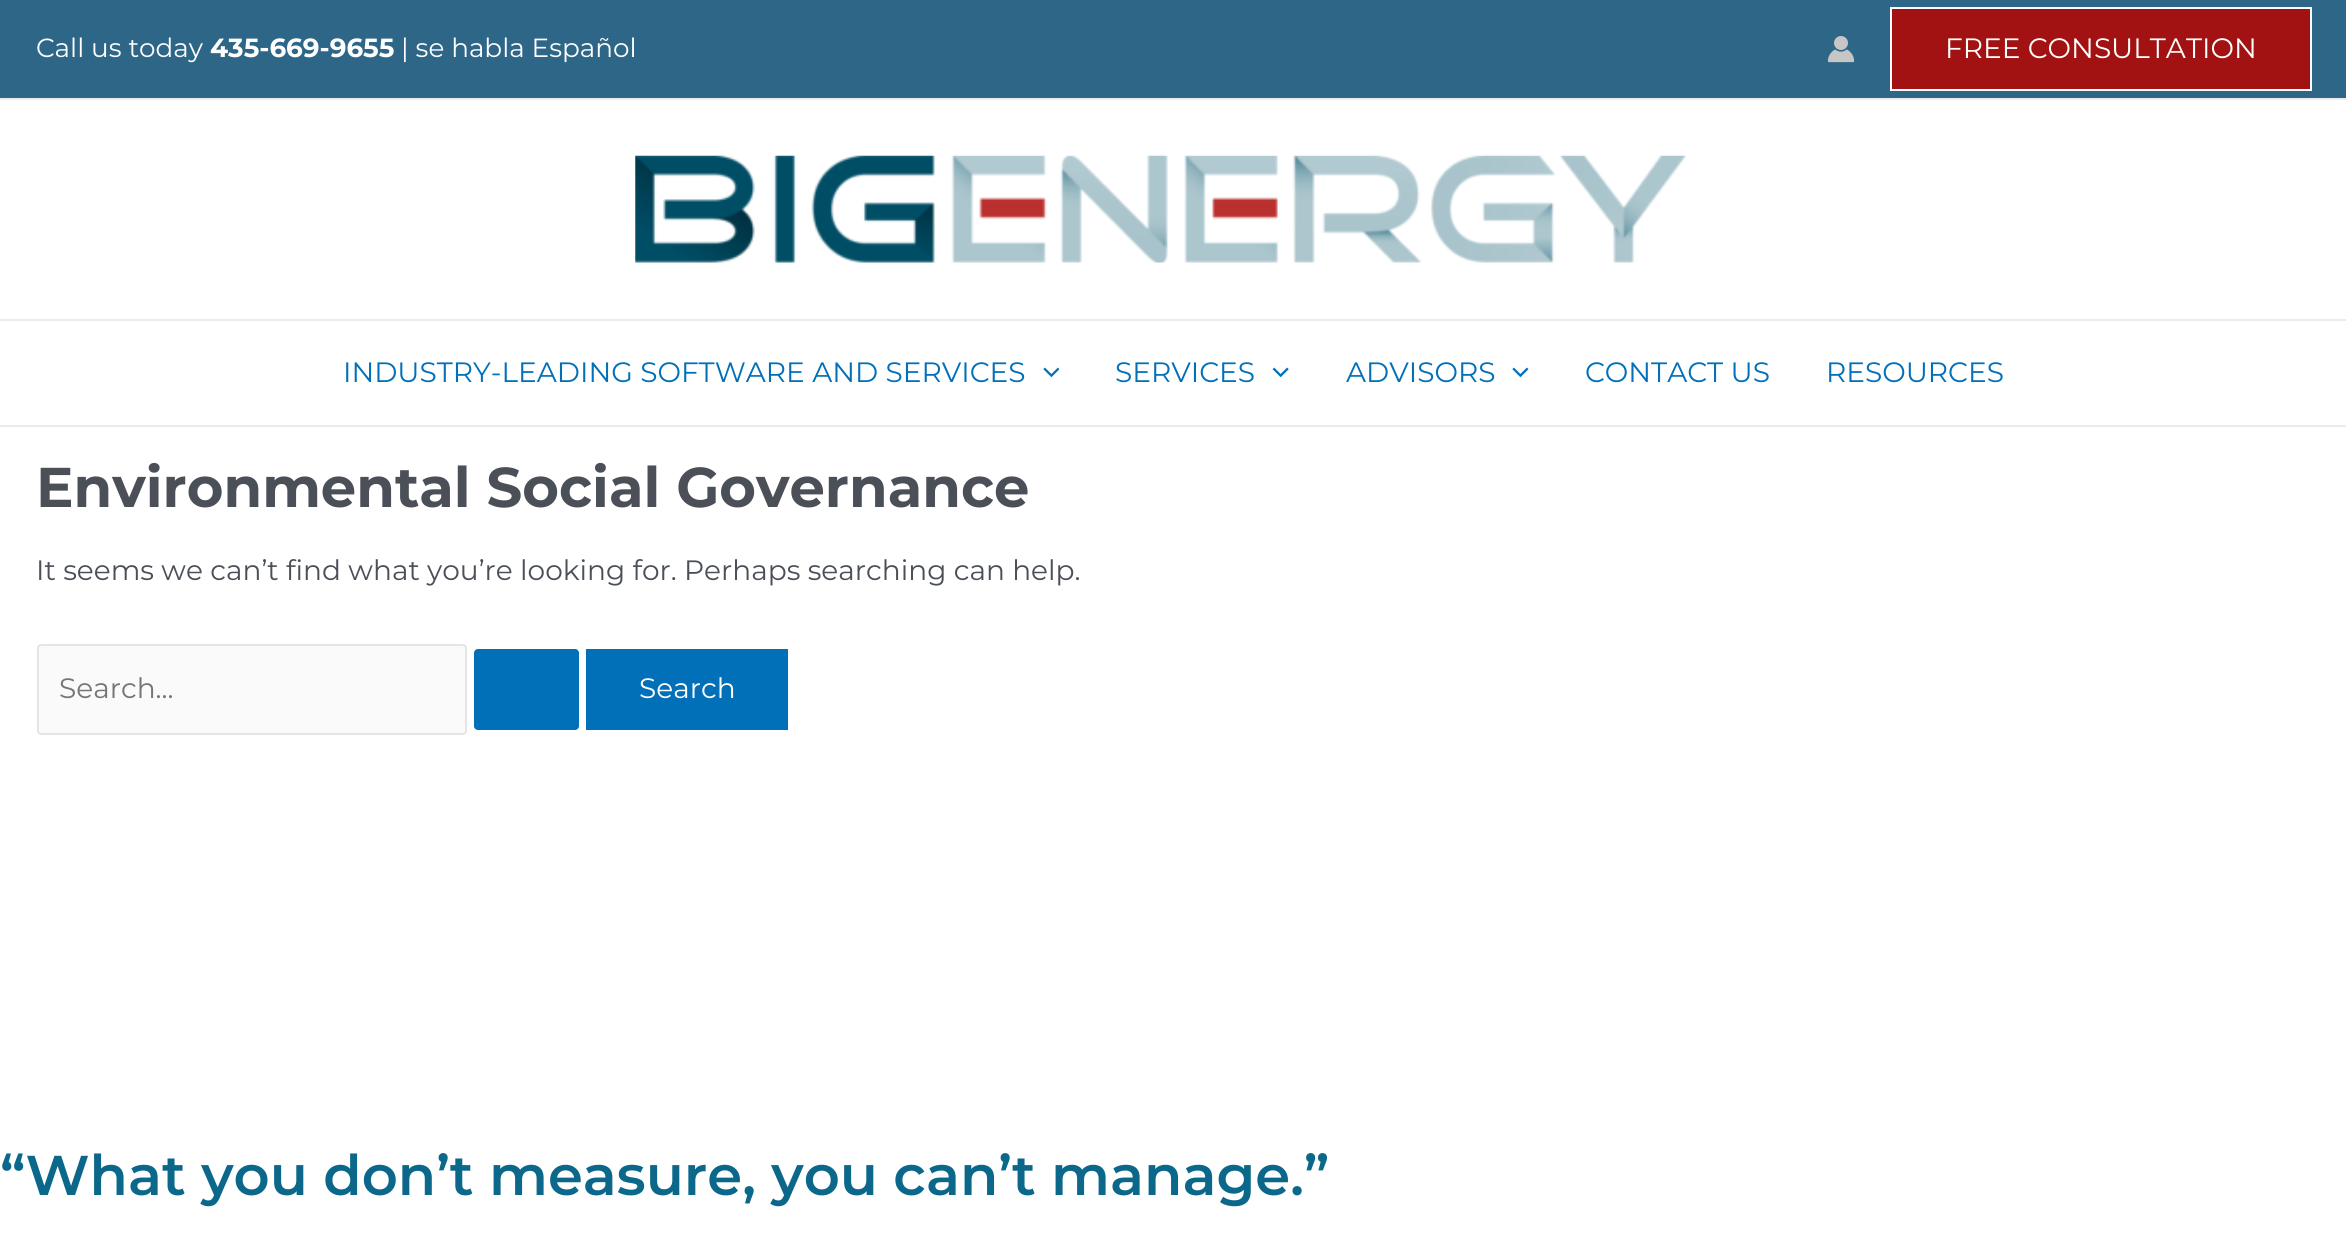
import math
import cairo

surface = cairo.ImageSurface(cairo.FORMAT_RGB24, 2346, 1257)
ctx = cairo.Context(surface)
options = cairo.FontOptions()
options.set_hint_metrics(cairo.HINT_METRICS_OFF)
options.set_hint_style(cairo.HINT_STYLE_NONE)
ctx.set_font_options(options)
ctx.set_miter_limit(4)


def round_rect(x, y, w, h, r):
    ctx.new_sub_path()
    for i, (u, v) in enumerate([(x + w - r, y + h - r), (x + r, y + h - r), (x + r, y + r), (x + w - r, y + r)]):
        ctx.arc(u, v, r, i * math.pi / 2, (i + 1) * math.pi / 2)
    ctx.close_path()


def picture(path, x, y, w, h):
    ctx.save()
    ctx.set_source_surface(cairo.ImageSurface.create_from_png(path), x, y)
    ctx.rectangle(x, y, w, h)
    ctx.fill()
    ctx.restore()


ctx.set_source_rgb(1, 1, 1)
ctx.paint()
ctx.set_source_rgb(0.18, 0.4, 0.529)
ctx.rectangle(0, 0, 2346, 98)
ctx.fill()
ctx.set_source_rgb(0.918, 0.918, 0.918)
ctx.rectangle(0, 98, 2346, 2)
ctx.fill()
ctx.select_font_face("Montserrat")
ctx.set_font_size(26.25)
ctx.set_source_rgb(1, 1, 1)
ctx.move_to(36, 57)
ctx.show_text("Call us today")
ctx.select_font_face("Montserrat", cairo.FONT_SLANT_NORMAL, cairo.FONT_WEIGHT_BOLD)
ctx.move_to(210, 57)
ctx.show_text("435-669-9655")
ctx.select_font_face("Montserrat")
ctx.move_to(401, 57)
ctx.show_text("| se habla Español")
picture("img1.png", 1827, 36, 28, 27)
ctx.set_source_rgb(0.635, 0.071, 0.071)
ctx.rectangle(1891, 8, 420, 82)
ctx.fill_preserve()
ctx.set_source_rgb(1, 1, 1)
ctx.stroke()
ctx.set_font_size(28)
ctx.move_to(1945, 58)
ctx.show_text("FREE CONSULTATION")
ctx.set_source_rgb(0.918, 0.918, 0.918)
ctx.rectangle(0, 319, 2346, 2)
ctx.fill()
picture("img2.png", 635, 155, 1051, 108)
ctx.rectangle(0, 425, 2346, 2)
ctx.fill()
ctx.set_source_rgb(0.004, 0.439, 0.725)
ctx.move_to(343, 382)
ctx.show_text("INDUSTRY-LEADING SOFTWARE AND SERVICES")
picture("img3.png", 1043, 367, 16, 11)
ctx.move_to(1115, 382)
ctx.show_text("SERVICES")
picture("img4.png", 1272, 367, 17, 11)
ctx.move_to(1346, 382)
ctx.show_text("ADVISORS")
picture("img5.png", 1512, 367, 17, 11)
ctx.move_to(1585, 382)
ctx.show_text("CONTACT US")
ctx.move_to(1826, 382)
ctx.show_text("RESOURCES")
ctx.select_font_face("Montserrat", cairo.FONT_SLANT_NORMAL, cairo.FONT_WEIGHT_BOLD)
ctx.set_font_size(56)
ctx.set_source_rgb(0.294, 0.31, 0.345)
ctx.move_to(36, 507)
ctx.show_text("Environmental Social Governance")
ctx.select_font_face("Montserrat")
ctx.set_font_size(28)
ctx.move_to(36, 580)
ctx.show_text("It seems we can’t find what you’re looking for. Perhaps searching can help.")
ctx.set_source_rgb(0.98, 0.98, 0.98)
round_rect(38, 645, 428, 89, 3)
ctx.fill_preserve()
ctx.set_source_rgb(0.898, 0.898, 0.898)
ctx.stroke()
ctx.set_source_rgb(0.459, 0.459, 0.459)
ctx.move_to(59, 698)
ctx.show_text("Search...")
ctx.set_source_rgb(0.004, 0.439, 0.725)
round_rect(474, 649, 105, 81, 4)
ctx.fill()
ctx.rectangle(586, 649, 202, 81)
ctx.fill()
ctx.set_source_rgb(1, 1, 1)
ctx.move_to(639, 698)
ctx.show_text("Search")
ctx.select_font_face("Montserrat SemiBold")
ctx.set_font_size(56)
ctx.set_source_rgb(0.043, 0.408, 0.541)
ctx.move_to(0, 1195)
ctx.show_text("“What you don’t measure, you can’t manage.”")
surface.write_to_png("page.png")
